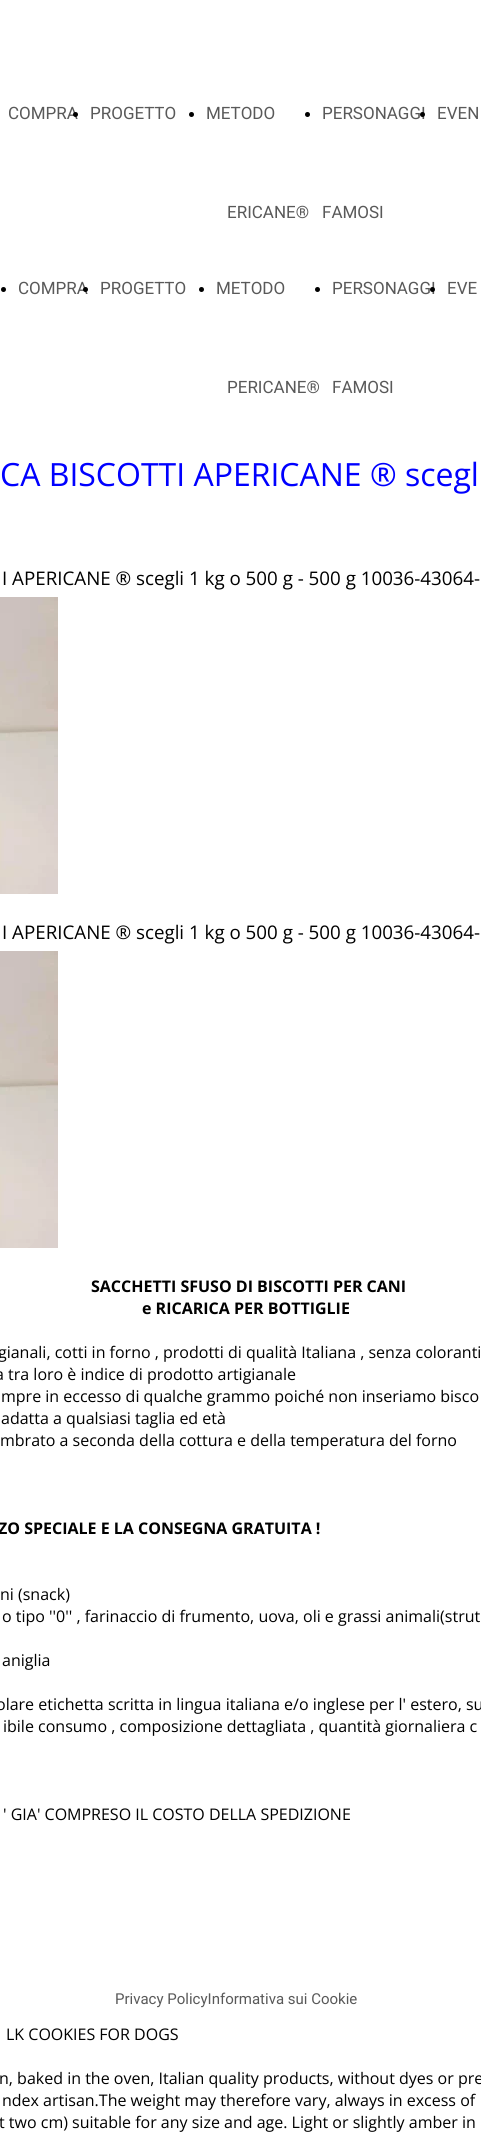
import math
import cairo

surface = cairo.ImageSurface(cairo.FORMAT_RGB24, 481, 2141)
ctx = cairo.Context(surface)
options = cairo.FontOptions()
options.set_hint_metrics(cairo.HINT_METRICS_OFF)
options.set_hint_style(cairo.HINT_STYLE_NONE)
ctx.set_font_options(options)
ctx.set_miter_limit(4)


def picture(path, x, y, w, h):
    ctx.save()
    ctx.set_source_surface(cairo.ImageSurface.create_from_png(path), x, y)
    ctx.rectangle(x, y, w, h)
    ctx.fill()
    ctx.restore()


ctx.set_source_rgb(1, 1, 1)
ctx.paint()
ctx.select_font_face("Roboto")
ctx.set_font_size(17)
ctx.set_source_rgb(0.349, 0.349, 0.349)
ctx.move_to(8, 119)
ctx.show_text("COMPRA")
ctx.set_source_rgb(0, 0, 0)
ctx.new_path()
ctx.arc(75.5, 114.5, 2.5, 0, 2 * math.pi)
ctx.fill()
ctx.set_source_rgb(0.349, 0.349, 0.349)
ctx.move_to(90, 119)
ctx.show_text("PROGETTO")
ctx.set_source_rgb(0, 0, 0)
ctx.new_path()
ctx.arc(191.5, 114.5, 2.5, 0, 2 * math.pi)
ctx.fill()
ctx.set_source_rgb(0.349, 0.349, 0.349)
ctx.move_to(206, 119)
ctx.show_text("METODO")
ctx.move_to(227, 218)
ctx.show_text("ERICANE®")
ctx.set_source_rgb(0, 0, 0)
ctx.new_path()
ctx.arc(307.5, 114.5, 2.5, 0, 2 * math.pi)
ctx.fill()
ctx.set_source_rgb(0.349, 0.349, 0.349)
ctx.move_to(322, 119)
ctx.show_text("PERSONAGGI")
ctx.move_to(322, 218)
ctx.show_text("FAMOSI")
ctx.set_source_rgb(0, 0, 0)
ctx.new_path()
ctx.arc(422.5, 114.5, 2.5, 0, 2 * math.pi)
ctx.fill()
ctx.set_source_rgb(0.349, 0.349, 0.349)
ctx.move_to(437, 119)
ctx.show_text("EVEN")
ctx.set_source_rgb(0, 0, 0)
ctx.new_path()
ctx.arc(3.5, 289.5, 2.5, 0, 2 * math.pi)
ctx.fill()
ctx.set_source_rgb(0.349, 0.349, 0.349)
ctx.move_to(18, 294)
ctx.show_text("COMPRA")
ctx.set_source_rgb(0, 0, 0)
ctx.new_path()
ctx.arc(85.5, 289.5, 2.5, 0, 2 * math.pi)
ctx.fill()
ctx.set_source_rgb(0.349, 0.349, 0.349)
ctx.move_to(100, 294)
ctx.show_text("PROGETTO")
ctx.set_source_rgb(0, 0, 0)
ctx.new_path()
ctx.arc(201.5, 289.5, 2.5, 0, 2 * math.pi)
ctx.fill()
ctx.set_source_rgb(0.349, 0.349, 0.349)
ctx.move_to(216, 294)
ctx.show_text("METODO")
ctx.move_to(227, 393)
ctx.show_text("PERICANE®")
ctx.set_source_rgb(0, 0, 0)
ctx.new_path()
ctx.arc(317.5, 289.5, 2.5, 0, 2 * math.pi)
ctx.fill()
ctx.set_source_rgb(0.349, 0.349, 0.349)
ctx.move_to(332, 294)
ctx.show_text("PERSONAGGI")
ctx.move_to(332, 393)
ctx.show_text("FAMOSI")
ctx.set_source_rgb(0, 0, 0)
ctx.new_path()
ctx.arc(432.5, 289.5, 2.5, 0, 2 * math.pi)
ctx.fill()
ctx.set_source_rgb(0.349, 0.349, 0.349)
ctx.move_to(447, 294)
ctx.show_text("EVE")
ctx.select_font_face("Open Sans")
ctx.set_font_size(32)
ctx.set_source_rgb(0, 0, 1)
ctx.move_to(0, 486)
ctx.show_text("CA BISCOTTI APERICANE ® scegl")
ctx.set_font_size(18.75)
ctx.set_source_rgb(0, 0, 0)
ctx.move_to(2, 585)
ctx.show_text("I APERICANE ® scegli 1 kg o 500 g - 500 g 10036-43064-")
picture("img1.png", 0, 597, 58, 297)
ctx.move_to(2, 939)
ctx.show_text("I APERICANE ® scegli 1 kg o 500 g - 500 g 10036-43064-")
picture("img1.png", 0, 951, 58, 297)
ctx.select_font_face("Open Sans", cairo.FONT_SLANT_NORMAL, cairo.FONT_WEIGHT_BOLD)
ctx.set_font_size(16)
ctx.move_to(91, 1292)
ctx.show_text("SACCHETTI SFUSO DI BISCOTTI PER CANI")
ctx.move_to(142, 1314)
ctx.show_text("e RICARICA PER BOTTIGLIE")
ctx.select_font_face("Open Sans")
ctx.move_to(-2, 1358)
ctx.show_text("gianali, cotti in forno , prodotti di qualità Italiana , senza coloranti")
ctx.move_to(-5, 1380)
ctx.show_text("a tra loro è indice di prodotto artigianale")
ctx.move_to(1, 1402)
ctx.show_text("mpre in eccesso di qualche grammo poiché non inseriamo bisco")
ctx.move_to(1, 1424)
ctx.show_text("adatta a qualsiasi taglia ed età")
ctx.move_to(0, 1446)
ctx.show_text("mbrato a seconda della cottura e della temperatura del forno")
ctx.select_font_face("Open Sans", cairo.FONT_SLANT_NORMAL, cairo.FONT_WEIGHT_BOLD)
ctx.move_to(-2, 1534)
ctx.show_text("ZO SPECIALE E LA CONSEGNA GRATUITA !")
ctx.select_font_face("Open Sans")
ctx.move_to(0, 1600)
ctx.show_text("ni (snack)")
ctx.move_to(2, 1622)
ctx.show_text("o tipo ''0'' , farinaccio di frumento, uova, oli e grassi animali(strut")
ctx.move_to(2, 1666)
ctx.show_text("aniglia")
ctx.move_to(-4, 1710)
ctx.show_text("olare etichetta scritta in lingua italiana e/o inglese per l' estero, su")
ctx.move_to(3, 1732)
ctx.show_text("ibile consumo , composizione dettagliata , quantità giornaliera c")
ctx.move_to(3, 1820)
ctx.show_text("' GIA' COMPRESO IL COSTO DELLA SPEDIZIONE")
ctx.move_to(6, 2040)
ctx.show_text("LK COOKIES FOR DOGS")
ctx.move_to(-1, 2084)
ctx.show_text("n, baked in the oven, Italian quality products, without dyes or pre")
ctx.move_to(2, 2106)
ctx.show_text("ndex artisan.The weight may therefore vary, always in excess of")
ctx.move_to(-1, 2128)
ctx.show_text("t two cm) suitable for any size and age. Light or slightly amber in")
ctx.select_font_face("Roboto")
ctx.set_font_size(15)
ctx.set_source_rgb(0.349, 0.349, 0.349)
ctx.move_to(115, 2004)
ctx.show_text("Privacy PolicyInformativa sui Cookie")
surface.write_to_png("page.png")
